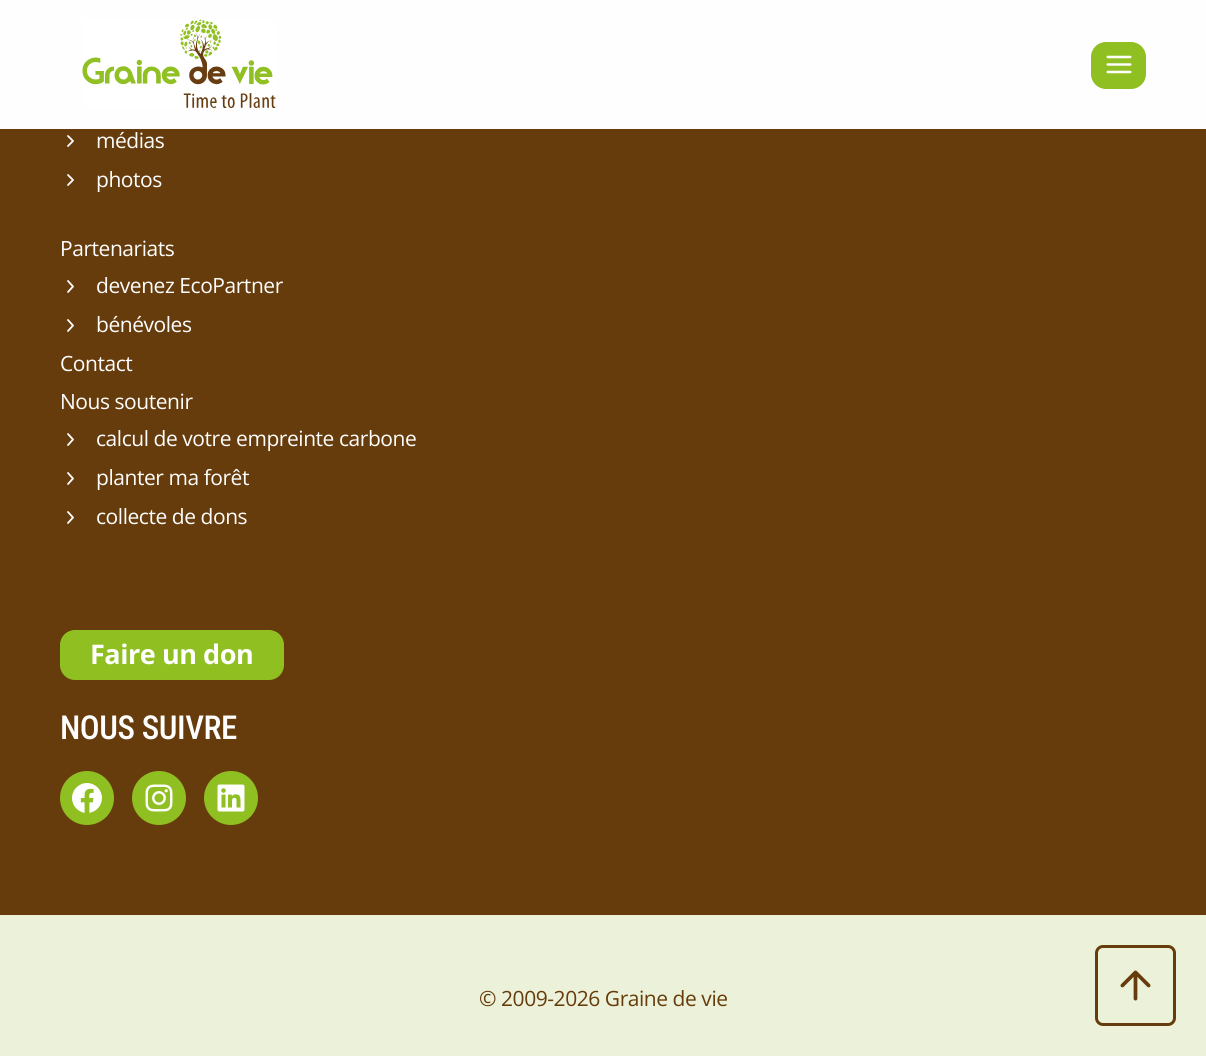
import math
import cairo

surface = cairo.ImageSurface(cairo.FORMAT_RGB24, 1206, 1056)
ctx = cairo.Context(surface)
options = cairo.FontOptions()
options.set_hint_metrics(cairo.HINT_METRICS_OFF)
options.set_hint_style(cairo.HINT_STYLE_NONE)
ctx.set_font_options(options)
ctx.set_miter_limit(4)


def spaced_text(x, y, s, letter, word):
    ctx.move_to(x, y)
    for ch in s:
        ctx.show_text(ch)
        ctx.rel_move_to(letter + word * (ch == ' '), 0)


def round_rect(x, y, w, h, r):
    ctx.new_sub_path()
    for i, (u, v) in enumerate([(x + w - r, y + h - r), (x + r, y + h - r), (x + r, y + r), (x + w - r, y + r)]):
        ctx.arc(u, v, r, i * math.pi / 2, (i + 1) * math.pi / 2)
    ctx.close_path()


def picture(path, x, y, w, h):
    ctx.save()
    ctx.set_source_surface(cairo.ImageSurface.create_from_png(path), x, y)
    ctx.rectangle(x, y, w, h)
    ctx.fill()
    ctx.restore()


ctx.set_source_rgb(0.404, 0.235, 0.047)
ctx.paint()
ctx.set_source_rgb(0.996, 0.996, 0.996)
ctx.rectangle(0, 0, 1206, 129)
ctx.fill()
picture("img1.png", 82, 19, 194, 89)
ctx.set_source_rgb(0.565, 0.749, 0.129)
round_rect(1091, 42, 55, 47, 15)
ctx.fill()
picture("img2.png", 1106, 55, 26, 19)
ctx.new_path()
ctx.move_to(68, 146)
ctx.line_to(73, 141)
ctx.line_to(68, 136)
ctx.move_to(68, 185)
ctx.line_to(73, 180)
ctx.line_to(68, 175)
ctx.set_source_rgb(0.996, 0.996, 0.996)
ctx.set_line_width(1.8)
ctx.set_line_cap(cairo.LINE_CAP_ROUND)
ctx.set_line_join(cairo.LINE_JOIN_ROUND)
ctx.stroke()
ctx.select_font_face("Open Sans")
ctx.set_font_size(21)
spaced_text(96, 148, "médias", -0.45, 0)
spaced_text(96, 187, "photos", -0.45, 0)
spaced_text(60, 256, "Partenariats", -0.45, 0)
ctx.new_path()
ctx.move_to(68, 292)
ctx.line_to(73, 286.5)
ctx.line_to(68, 281)
ctx.move_to(68, 331)
ctx.line_to(73, 325.5)
ctx.line_to(68, 320)
ctx.stroke()
spaced_text(96, 293, "devenez EcoPartner", -0.45, 0)
spaced_text(96, 332, "bénévoles", -0.45, 0)
spaced_text(60, 371, "Contact", -0.45, 0)
spaced_text(60, 409, "Nous soutenir", -0.45, 0)
ctx.new_path()
ctx.move_to(68, 445)
ctx.line_to(73, 439.5)
ctx.line_to(68, 434)
ctx.move_to(68, 484)
ctx.line_to(73, 478.5)
ctx.line_to(68, 473)
ctx.stroke()
spaced_text(96, 446, "calcul de votre empreinte carbone", -0.45, 0)
spaced_text(96, 485, "planter ma forêt", -0.45, 0)
ctx.new_path()
ctx.move_to(68, 523)
ctx.line_to(73, 517.5)
ctx.line_to(68, 512)
ctx.stroke()
spaced_text(96, 524, "collecte de dons", -0.45, 0)
ctx.set_source_rgb(0.565, 0.749, 0.129)
round_rect(60, 630, 224, 50, 15)
ctx.fill()
ctx.select_font_face("Open Sans", cairo.FONT_SLANT_NORMAL, cairo.FONT_WEIGHT_BOLD)
ctx.set_font_size(27)
ctx.set_source_rgb(0.996, 0.996, 0.996)
spaced_text(90, 664, "Faire un don", -0.45, 0)
ctx.select_font_face("Roboto Condensed Medium")
ctx.set_font_size(33)
spaced_text(60, 739, "NOUS SUIVRE", -0.45, 0)
ctx.set_source_rgb(0.565, 0.749, 0.129)
ctx.new_path()
ctx.arc(87, 798, 27, 0, 2 * math.pi)
ctx.fill()
picture("img3.png", 72, 783, 30, 30)
ctx.arc(159, 798, 27, 0, 2 * math.pi)
ctx.fill()
picture("img4.png", 145, 784, 28, 28)
ctx.arc(231, 798, 27, 0, 2 * math.pi)
ctx.fill()
picture("img5.png", 217, 784, 28, 28)
ctx.set_source_rgb(0.922, 0.949, 0.851)
ctx.rectangle(0, 915, 1206, 141)
ctx.fill()
ctx.select_font_face("Open Sans")
ctx.set_font_size(21)
ctx.set_source_rgb(0.404, 0.235, 0.047)
spaced_text(479, 1006, "© 2009-2026 Graine de vie", -0.45, 0)
round_rect(1096.5, 946.5, 78, 78, 6.5)
ctx.set_line_width(3)
ctx.set_line_cap(cairo.LINE_CAP_BUTT)
ctx.set_line_join(cairo.LINE_JOIN_MITER)
ctx.stroke()
picture("img6.png", 1120, 970, 31, 31)
surface.write_to_png("page.png")
